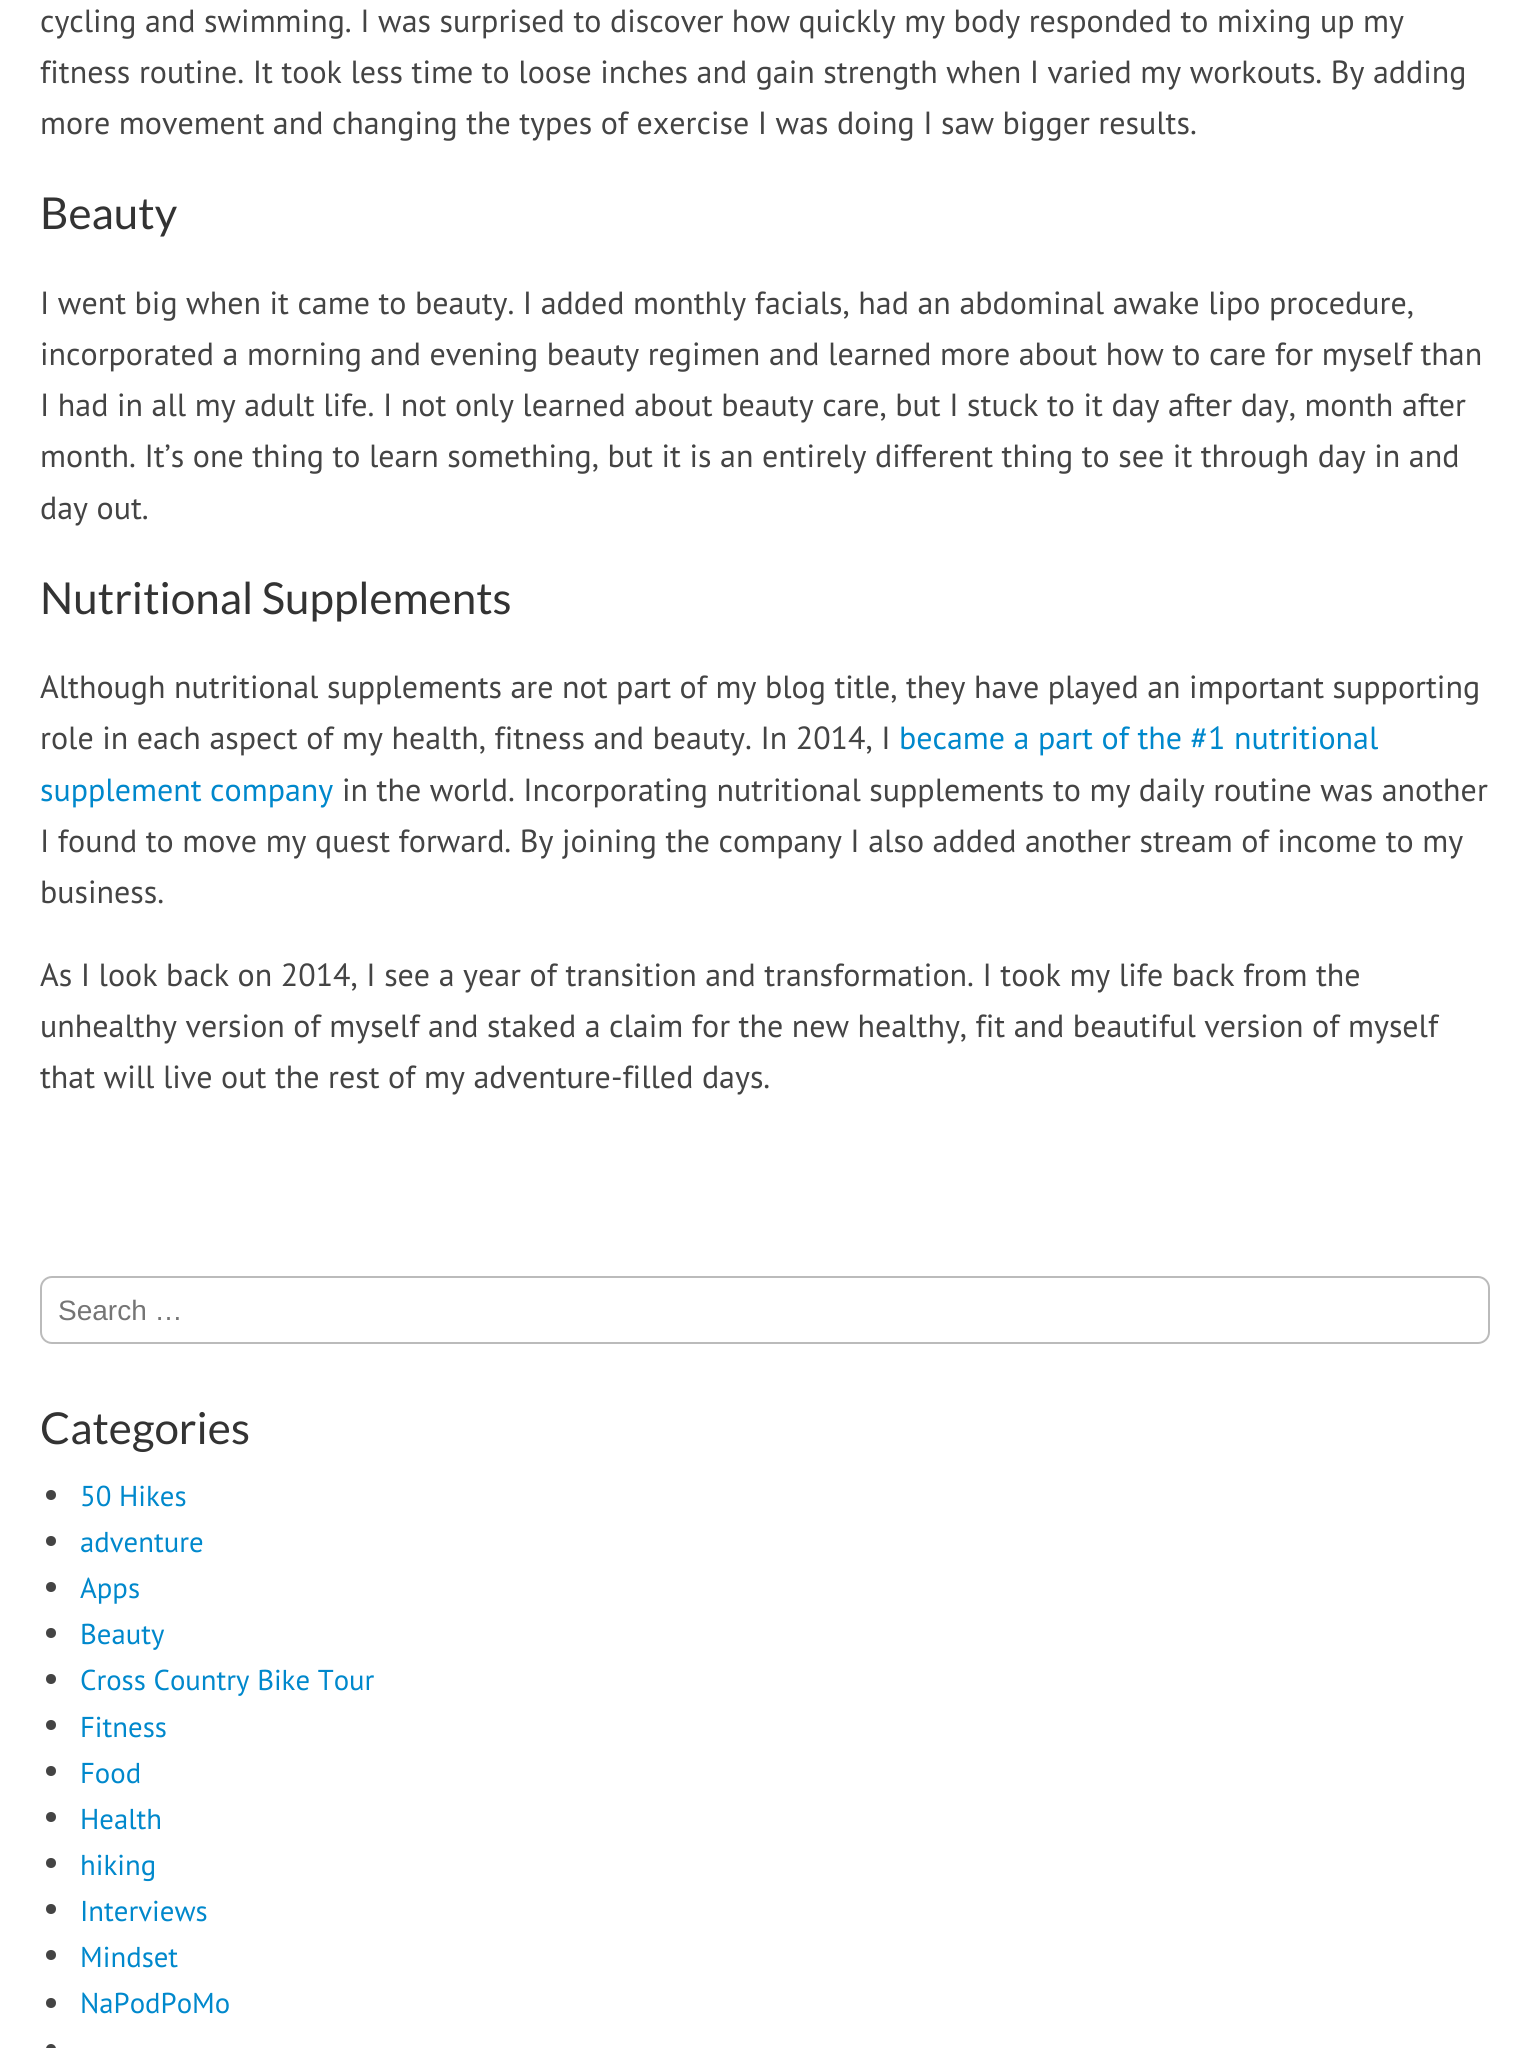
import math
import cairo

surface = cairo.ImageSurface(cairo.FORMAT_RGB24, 1529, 2048)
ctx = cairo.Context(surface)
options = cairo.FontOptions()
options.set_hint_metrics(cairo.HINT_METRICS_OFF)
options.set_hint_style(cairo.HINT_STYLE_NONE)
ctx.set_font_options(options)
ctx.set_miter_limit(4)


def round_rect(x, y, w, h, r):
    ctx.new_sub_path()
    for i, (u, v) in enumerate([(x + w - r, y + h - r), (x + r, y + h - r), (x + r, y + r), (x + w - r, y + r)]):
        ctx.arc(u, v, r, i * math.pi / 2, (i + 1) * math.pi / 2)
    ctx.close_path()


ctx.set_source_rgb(1, 1, 1)
ctx.paint()
ctx.select_font_face("PT Sans")
ctx.set_font_size(32)
ctx.set_source_rgb(0.267, 0.267, 0.267)
ctx.move_to(40, 32)
ctx.show_text("cycling and swimming. I was surprised to discover how quickly my body responded to mixing up my")
ctx.move_to(40, 83)
ctx.show_text("fitness routine. It took less time to loose inches and gain strength when I varied my workouts. By adding")
ctx.move_to(40, 134)
ctx.show_text("more movement and changing the types of exercise I was doing I saw bigger results.")
ctx.select_font_face("Lato")
ctx.set_font_size(44)
ctx.set_source_rgb(0.2, 0.2, 0.2)
ctx.move_to(40, 229)
ctx.show_text("Beauty")
ctx.select_font_face("PT Sans")
ctx.set_font_size(32)
ctx.set_source_rgb(0.267, 0.267, 0.267)
ctx.move_to(40, 314)
ctx.show_text("I went big when it came to beauty. I added monthly facials, had an abdominal awake lipo procedure,")
ctx.move_to(40, 365)
ctx.show_text("incorporated a morning and evening beauty regimen and learned more about how to care for myself than")
ctx.move_to(40, 416)
ctx.show_text("I had in all my adult life. I not only learned about beauty care, but I stuck to it day after day, month after")
ctx.move_to(40, 467)
ctx.show_text("month. It’s one thing to learn something, but it is an entirely different thing to see it through day in and")
ctx.move_to(40, 519)
ctx.show_text("day out.")
ctx.select_font_face("Lato")
ctx.set_font_size(44)
ctx.set_source_rgb(0.2, 0.2, 0.2)
ctx.move_to(40, 614)
ctx.show_text("Nutritional Supplements")
ctx.select_font_face("PT Sans")
ctx.set_font_size(32)
ctx.set_source_rgb(0.267, 0.267, 0.267)
ctx.move_to(40, 698)
ctx.show_text("Although nutritional supplements are not part of my blog title, they have played an important supporting")
ctx.move_to(40, 749)
ctx.show_text("role in each aspect of my health, fitness and beauty. In 2014, I")
ctx.set_source_rgb(0, 0.533, 0.8)
ctx.move_to(899, 749)
ctx.show_text("became a part of the #1 nutritional")
ctx.move_to(40, 801)
ctx.show_text("supplement company")
ctx.set_source_rgb(0.267, 0.267, 0.267)
ctx.move_to(342, 801)
ctx.show_text("in the world. Incorporating nutritional supplements to my daily routine was another")
ctx.move_to(40, 852)
ctx.show_text("I found to move my quest forward. By joining the company I also added another stream of income to my")
ctx.move_to(40, 903)
ctx.show_text("business.")
ctx.move_to(40, 986)
ctx.show_text("As I look back on 2014, I see a year of transition and transformation. I took my life back from the")
ctx.move_to(40, 1037)
ctx.show_text("unhealthy version of myself and staked a claim for the new healthy, fit and beautiful version of myself")
ctx.move_to(40, 1088)
ctx.show_text("that will live out the rest of my adventure-filled days.")
round_rect(41, 1277, 1448, 66, 11)
ctx.set_source_rgb(0.733, 0.733, 0.733)
ctx.stroke()
ctx.select_font_face("Liberation Sans")
ctx.set_font_size(28)
ctx.set_source_rgb(0.459, 0.459, 0.459)
ctx.move_to(58, 1320)
ctx.show_text("Search …")
ctx.select_font_face("Lato")
ctx.set_font_size(44)
ctx.set_source_rgb(0.2, 0.2, 0.2)
ctx.move_to(40, 1444)
ctx.show_text("Categories")
ctx.set_source_rgb(0.267, 0.267, 0.267)
ctx.new_path()
ctx.arc(51, 1495, 5, 0, 2 * math.pi)
ctx.fill()
ctx.select_font_face("PT Sans")
ctx.set_font_size(28.75)
ctx.set_source_rgb(0, 0.533, 0.8)
ctx.move_to(80, 1506)
ctx.show_text("50 Hikes")
ctx.set_source_rgb(0.267, 0.267, 0.267)
ctx.new_path()
ctx.arc(51, 1541, 5, 0, 2 * math.pi)
ctx.fill()
ctx.set_source_rgb(0, 0.533, 0.8)
ctx.move_to(80, 1552)
ctx.show_text("adventure")
ctx.set_source_rgb(0.267, 0.267, 0.267)
ctx.new_path()
ctx.arc(51, 1587, 5, 0, 2 * math.pi)
ctx.fill()
ctx.set_source_rgb(0, 0.533, 0.8)
ctx.move_to(80, 1598)
ctx.show_text("Apps")
ctx.set_source_rgb(0.267, 0.267, 0.267)
ctx.new_path()
ctx.arc(51, 1633, 5, 0, 2 * math.pi)
ctx.fill()
ctx.set_source_rgb(0, 0.533, 0.8)
ctx.move_to(80, 1644)
ctx.show_text("Beauty")
ctx.set_source_rgb(0.267, 0.267, 0.267)
ctx.new_path()
ctx.arc(51, 1679, 5, 0, 2 * math.pi)
ctx.fill()
ctx.set_source_rgb(0, 0.533, 0.8)
ctx.move_to(80, 1690)
ctx.show_text("Cross Country Bike Tour")
ctx.set_source_rgb(0.267, 0.267, 0.267)
ctx.new_path()
ctx.arc(51, 1725, 5, 0, 2 * math.pi)
ctx.fill()
ctx.set_source_rgb(0, 0.533, 0.8)
ctx.move_to(80, 1737)
ctx.show_text("Fitness")
ctx.set_source_rgb(0.267, 0.267, 0.267)
ctx.new_path()
ctx.arc(51, 1771, 5, 0, 2 * math.pi)
ctx.fill()
ctx.set_source_rgb(0, 0.533, 0.8)
ctx.move_to(80, 1783)
ctx.show_text("Food")
ctx.set_source_rgb(0.267, 0.267, 0.267)
ctx.new_path()
ctx.arc(51, 1817, 5, 0, 2 * math.pi)
ctx.fill()
ctx.set_source_rgb(0, 0.533, 0.8)
ctx.move_to(80, 1829)
ctx.show_text("Health")
ctx.set_source_rgb(0.267, 0.267, 0.267)
ctx.new_path()
ctx.arc(51, 1863, 5, 0, 2 * math.pi)
ctx.fill()
ctx.set_source_rgb(0, 0.533, 0.8)
ctx.move_to(80, 1875)
ctx.show_text("hiking")
ctx.set_source_rgb(0.267, 0.267, 0.267)
ctx.new_path()
ctx.arc(51, 1909, 5, 0, 2 * math.pi)
ctx.fill()
ctx.set_source_rgb(0, 0.533, 0.8)
ctx.move_to(80, 1921)
ctx.show_text("Interviews")
ctx.set_source_rgb(0.267, 0.267, 0.267)
ctx.new_path()
ctx.arc(51, 1955, 5, 0, 2 * math.pi)
ctx.fill()
ctx.set_source_rgb(0, 0.533, 0.8)
ctx.move_to(80, 1967)
ctx.show_text("Mindset")
ctx.set_source_rgb(0.267, 0.267, 0.267)
ctx.new_path()
ctx.arc(51, 2003, 5, 0, 2 * math.pi)
ctx.fill()
ctx.set_source_rgb(0, 0.533, 0.8)
ctx.move_to(80, 2013)
ctx.show_text("NaPodPoMo")
ctx.set_source_rgb(0.267, 0.267, 0.267)
round_rect(46, 2044, 10, 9, 5)
ctx.fill()
surface.write_to_png("page.png")
